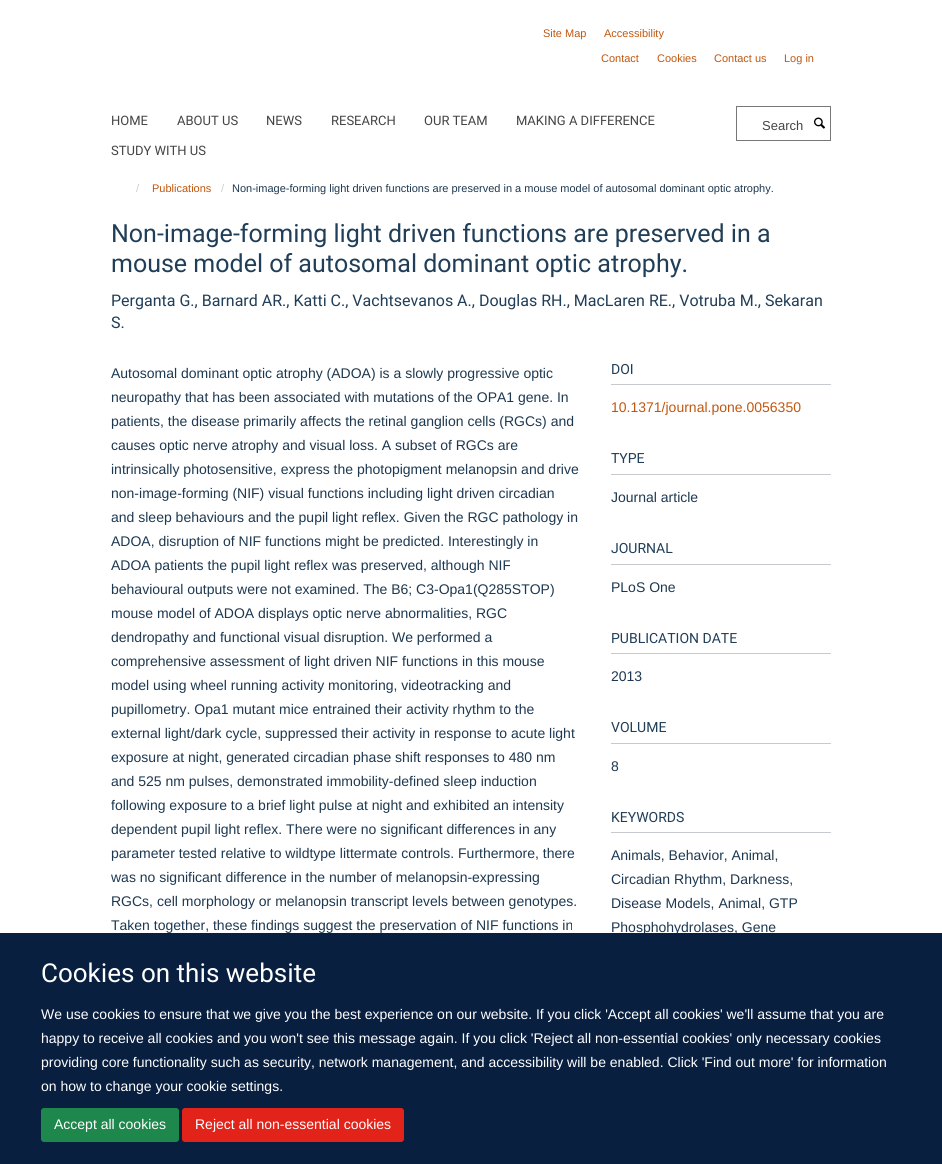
import math
import cairo

surface = cairo.ImageSurface(cairo.FORMAT_RGB24, 942, 1164)
ctx = cairo.Context(surface)
options = cairo.FontOptions()
options.set_hint_metrics(cairo.HINT_METRICS_OFF)
options.set_hint_style(cairo.HINT_STYLE_NONE)
ctx.set_font_options(options)
ctx.set_miter_limit(4)


def round_rect(x, y, w, h, r):
    ctx.new_sub_path()
    for i, (u, v) in enumerate([(x + w - r, y + h - r), (x + r, y + h - r), (x + r, y + r), (x + w - r, y + r)]):
        ctx.arc(u, v, r, i * math.pi / 2, (i + 1) * math.pi / 2)
    ctx.close_path()


def picture(path, x, y, w, h):
    ctx.save()
    ctx.set_source_surface(cairo.ImageSurface.create_from_png(path), x, y)
    ctx.rectangle(x, y, w, h)
    ctx.fill()
    ctx.restore()


ctx.set_source_rgb(1, 1, 1)
ctx.paint()
ctx.select_font_face("Liberation Sans")
ctx.set_font_size(11)
ctx.set_source_rgb(0.757, 0.341, 0.055)
ctx.move_to(543, 37)
ctx.show_text("Site Map")
ctx.move_to(604, 37)
ctx.show_text("Accessibility")
ctx.move_to(601, 62)
ctx.show_text("Contact")
ctx.move_to(657, 62)
ctx.show_text("Cookies")
ctx.move_to(714, 62)
ctx.show_text("Contact us")
ctx.move_to(784, 62)
ctx.show_text("Log in")
ctx.select_font_face("Heebo")
ctx.set_font_size(13)
ctx.set_source_rgb(0.267, 0.267, 0.267)
ctx.move_to(111, 125)
ctx.show_text("HOME")
ctx.move_to(177, 125)
ctx.show_text("ABOUT US")
ctx.move_to(266, 125)
ctx.show_text("NEWS")
ctx.move_to(331, 125)
ctx.show_text("RESEARCH")
ctx.move_to(424, 125)
ctx.show_text("OUR TEAM")
ctx.move_to(516, 125)
ctx.show_text("MAKING A DIFFERENCE")
ctx.move_to(111, 155)
ctx.show_text("STUDY WITH US")
ctx.rectangle(736.5, 106.5, 94, 34)
ctx.set_source_rgb(0.467, 0.467, 0.467)
ctx.set_line_width(1)
ctx.stroke()
ctx.select_font_face("Liberation Sans")
ctx.set_source_rgb(0.267, 0.267, 0.267)
ctx.move_to(762, 130)
ctx.show_text("Search")
picture("img1.png", 814, 117, 11, 12)
ctx.set_font_size(11)
ctx.set_source_rgb(0.8, 0.8, 0.8)
ctx.move_to(136, 192)
ctx.show_text("/")
ctx.set_source_rgb(0.757, 0.341, 0.055)
ctx.move_to(152, 192)
ctx.show_text("Publications")
ctx.set_source_rgb(0.8, 0.8, 0.8)
ctx.move_to(221, 192)
ctx.show_text("/")
ctx.set_source_rgb(0.114, 0.22, 0.314)
ctx.move_to(232, 192)
ctx.show_text("Non-image-forming light driven functions are preserved in a mouse model of autosomal dominant optic atrophy.")
ctx.select_font_face("Heebo")
ctx.set_font_size(25)
ctx.set_source_rgb(0.125, 0.243, 0.345)
ctx.move_to(111, 242)
ctx.show_text("Non-image-forming light driven functions are preserved in a")
ctx.move_to(111, 272)
ctx.show_text("mouse model of autosomal dominant optic atrophy.")
ctx.set_font_size(16)
ctx.move_to(111, 306)
ctx.show_text("Perganta G., Barnard AR., Katti C., Vachtsevanos A., Douglas RH., MacLaren RE., Votruba M., Sekaran")
ctx.move_to(111, 328)
ctx.show_text("S.")
ctx.select_font_face("Liberation Sans")
ctx.set_font_size(14)
ctx.set_source_rgb(0.114, 0.22, 0.314)
ctx.move_to(111, 378)
ctx.show_text("Autosomal dominant optic atrophy (ADOA) is a slowly progressive optic")
ctx.move_to(111, 402)
ctx.show_text("neuropathy that has been associated with mutations of the OPA1 gene. In")
ctx.move_to(111, 426)
ctx.show_text("patients, the disease primarily affects the retinal ganglion cells (RGCs) and")
ctx.move_to(111, 450)
ctx.show_text("causes optic nerve atrophy and visual loss. A subset of RGCs are")
ctx.move_to(111, 474)
ctx.show_text("intrinsically photosensitive, express the photopigment melanopsin and drive")
ctx.move_to(111, 498)
ctx.show_text("non-image-forming (NIF) visual functions including light driven circadian")
ctx.move_to(111, 522)
ctx.show_text("and sleep behaviours and the pupil light reflex. Given the RGC pathology in")
ctx.move_to(111, 546)
ctx.show_text("ADOA, disruption of NIF functions might be predicted. Interestingly in")
ctx.move_to(111, 570)
ctx.show_text("ADOA patients the pupil light reflex was preserved, although NIF")
ctx.move_to(111, 594)
ctx.show_text("behavioural outputs were not examined. The B6; C3-Opa1(Q285STOP)")
ctx.move_to(111, 618)
ctx.show_text("mouse model of ADOA displays optic nerve abnormalities, RGC")
ctx.move_to(111, 642)
ctx.show_text("dendropathy and functional visual disruption. We performed a")
ctx.move_to(111, 666)
ctx.show_text("comprehensive assessment of light driven NIF functions in this mouse")
ctx.move_to(111, 690)
ctx.show_text("model using wheel running activity monitoring, videotracking and")
ctx.move_to(111, 714)
ctx.show_text("pupillometry. Opa1 mutant mice entrained their activity rhythm to the")
ctx.move_to(111, 738)
ctx.show_text("external light/dark cycle, suppressed their activity in response to acute light")
ctx.move_to(111, 762)
ctx.show_text("exposure at night, generated circadian phase shift responses to 480 nm")
ctx.move_to(111, 786)
ctx.show_text("and 525 nm pulses, demonstrated immobility-defined sleep induction")
ctx.move_to(111, 810)
ctx.show_text("following exposure to a brief light pulse at night and exhibited an intensity")
ctx.move_to(111, 834)
ctx.show_text("dependent pupil light reflex. There were no significant differences in any")
ctx.move_to(111, 858)
ctx.show_text("parameter tested relative to wildtype littermate controls. Furthermore, there")
ctx.move_to(111, 882)
ctx.show_text("was no significant difference in the number of melanopsin-expressing")
ctx.move_to(111, 906)
ctx.show_text("RGCs, cell morphology or melanopsin transcript levels between genotypes.")
ctx.move_to(111, 930)
ctx.show_text("Taken together, these findings suggest the preservation of NIF functions in")
ctx.set_source_rgb(0.776, 0.792, 0.812)
ctx.rectangle(611, 384, 220, 1)
ctx.fill()
ctx.select_font_face("Heebo")
ctx.set_source_rgb(0.125, 0.243, 0.345)
ctx.move_to(611, 374)
ctx.show_text("DOI")
ctx.select_font_face("Liberation Sans")
ctx.set_source_rgb(0.757, 0.341, 0.055)
ctx.move_to(611, 412)
ctx.show_text("10.1371/journal.pone.0056350")
ctx.set_source_rgb(0.776, 0.792, 0.812)
ctx.rectangle(611, 474, 220, 1)
ctx.fill()
ctx.select_font_face("Heebo")
ctx.set_source_rgb(0.125, 0.243, 0.345)
ctx.move_to(611, 463)
ctx.show_text("TYPE")
ctx.select_font_face("Liberation Sans")
ctx.set_source_rgb(0.114, 0.22, 0.314)
ctx.move_to(611, 502)
ctx.show_text("Journal article")
ctx.set_source_rgb(0.776, 0.792, 0.812)
ctx.rectangle(611, 564, 220, 1)
ctx.fill()
ctx.select_font_face("Heebo")
ctx.set_source_rgb(0.125, 0.243, 0.345)
ctx.move_to(611, 553)
ctx.show_text("JOURNAL")
ctx.select_font_face("Liberation Sans")
ctx.set_source_rgb(0.114, 0.22, 0.314)
ctx.move_to(611, 592)
ctx.show_text("PLoS One")
ctx.set_source_rgb(0.776, 0.792, 0.812)
ctx.rectangle(611, 653, 220, 1)
ctx.fill()
ctx.select_font_face("Heebo")
ctx.set_source_rgb(0.125, 0.243, 0.345)
ctx.move_to(611, 643)
ctx.show_text("PUBLICATION DATE")
ctx.select_font_face("Liberation Sans")
ctx.set_source_rgb(0.114, 0.22, 0.314)
ctx.move_to(611, 681)
ctx.show_text("2013")
ctx.set_source_rgb(0.776, 0.792, 0.812)
ctx.rectangle(611, 743, 220, 1)
ctx.fill()
ctx.select_font_face("Heebo")
ctx.set_source_rgb(0.125, 0.243, 0.345)
ctx.move_to(611, 732)
ctx.show_text("VOLUME")
ctx.select_font_face("Liberation Sans")
ctx.set_source_rgb(0.114, 0.22, 0.314)
ctx.move_to(611, 771)
ctx.show_text("8")
ctx.set_source_rgb(0.776, 0.792, 0.812)
ctx.rectangle(611, 832, 220, 1)
ctx.fill()
ctx.select_font_face("Heebo")
ctx.set_source_rgb(0.125, 0.243, 0.345)
ctx.move_to(611, 822)
ctx.show_text("KEYWORDS")
ctx.select_font_face("Liberation Sans")
ctx.set_source_rgb(0.114, 0.22, 0.314)
ctx.move_to(611, 860)
ctx.show_text("Animals, Behavior, Animal,")
ctx.move_to(611, 884)
ctx.show_text("Circadian Rhythm, Darkness,")
ctx.move_to(611, 908)
ctx.show_text("Disease Models, Animal, GTP")
ctx.move_to(611, 932)
ctx.show_text("Phosphohydrolases, Gene")
ctx.set_source_rgb(0.035, 0.122, 0.251)
ctx.rectangle(0, 933, 942, 231)
ctx.fill()
ctx.select_font_face("Heebo")
ctx.set_font_size(26)
ctx.set_source_rgb(1, 1, 1)
ctx.move_to(41, 982)
ctx.show_text("Cookies on this website")
ctx.select_font_face("Liberation Sans")
ctx.set_font_size(14)
ctx.move_to(41, 1019)
ctx.show_text("We use cookies to ensure that we give you the best experience on our website. If you click 'Accept all cookies' we'll assume that you are")
ctx.move_to(41, 1043)
ctx.show_text("happy to receive all cookies and you won't see this message again. If you click 'Reject all non-essential cookies' only necessary cookies")
ctx.move_to(41, 1067)
ctx.show_text("providing core functionality such as security, network management, and accessibility will be enabled. Click 'Find out more' for information")
ctx.move_to(41, 1091)
ctx.show_text("on how to change your cookie settings.")
ctx.set_source_rgb(0.118, 0.529, 0.294)
round_rect(41.5, 1108.5, 137, 33, 2.5)
ctx.fill_preserve()
ctx.stroke()
ctx.set_source_rgb(1, 1, 1)
ctx.move_to(54, 1129)
ctx.show_text("Accept all cookies")
ctx.set_source_rgb(0.886, 0.137, 0.102)
round_rect(182.5, 1108.5, 221, 33, 2.5)
ctx.fill_preserve()
ctx.stroke()
ctx.set_source_rgb(1, 1, 1)
ctx.move_to(195, 1129)
ctx.show_text("Reject all non-essential cookies")
surface.write_to_png("page.png")
